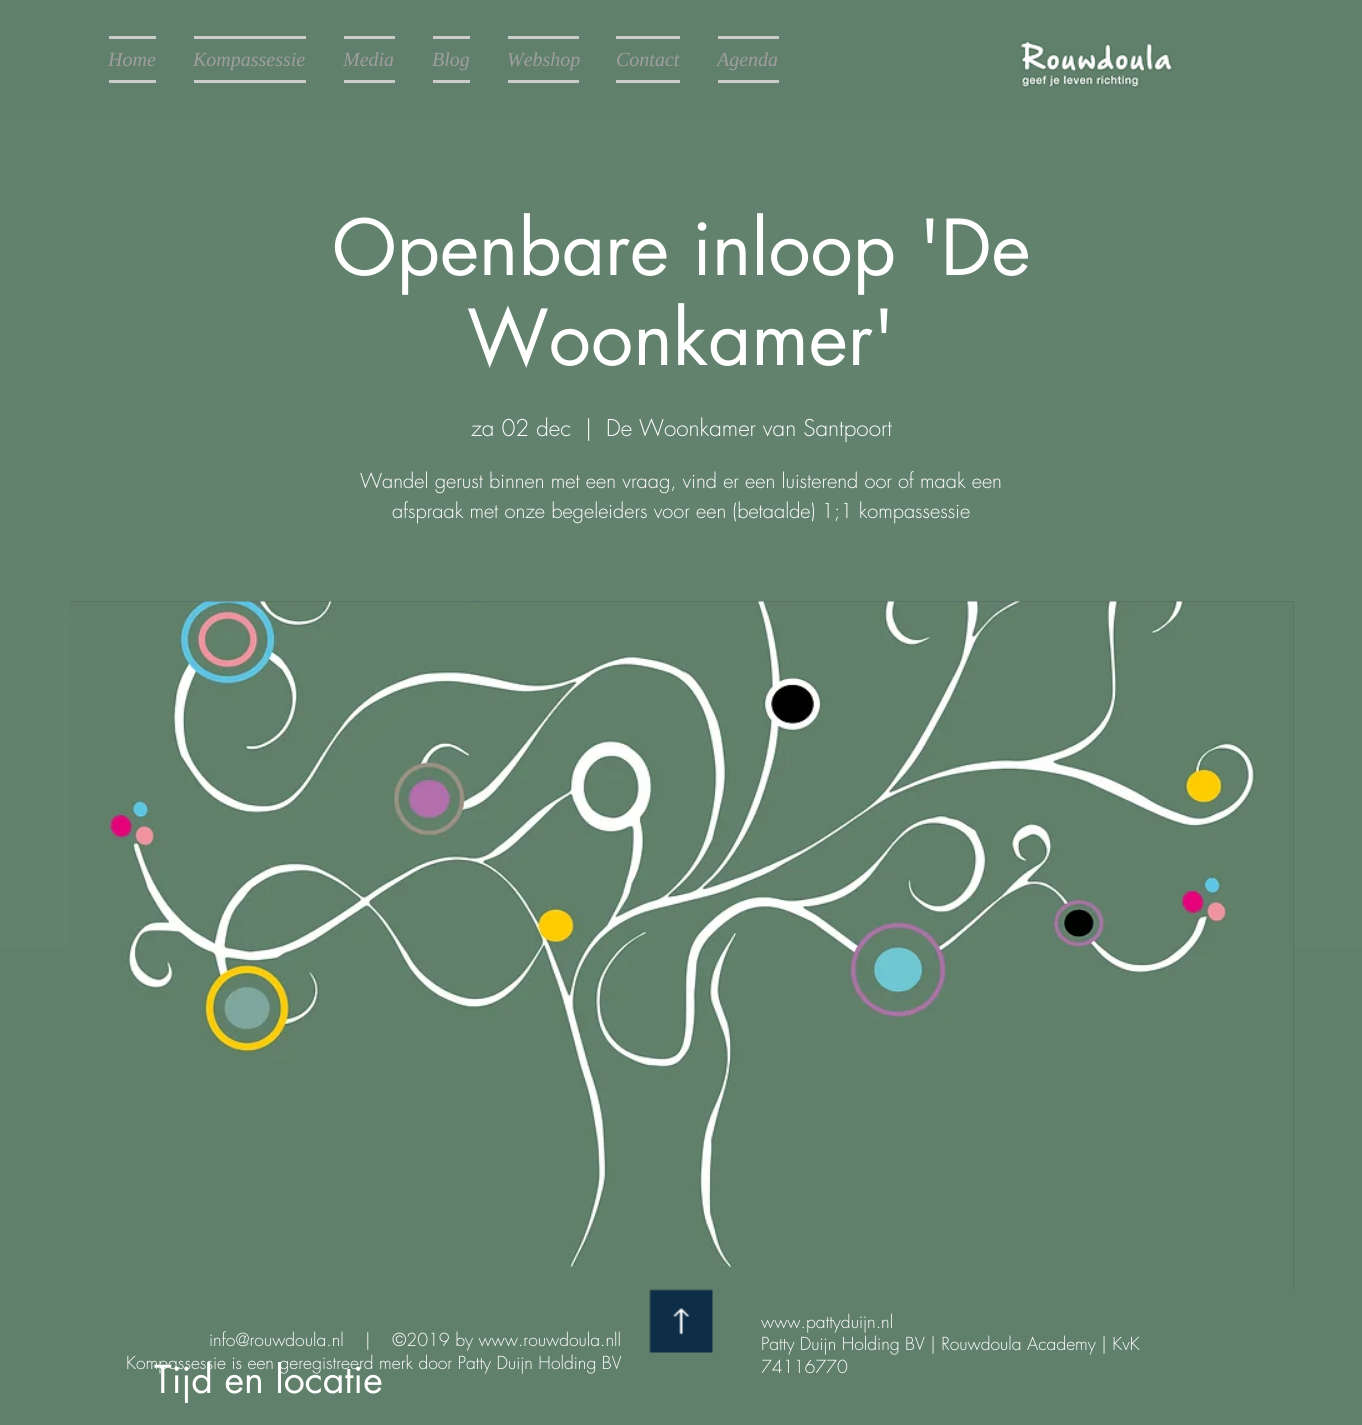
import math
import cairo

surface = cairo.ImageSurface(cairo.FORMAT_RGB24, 1362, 1425)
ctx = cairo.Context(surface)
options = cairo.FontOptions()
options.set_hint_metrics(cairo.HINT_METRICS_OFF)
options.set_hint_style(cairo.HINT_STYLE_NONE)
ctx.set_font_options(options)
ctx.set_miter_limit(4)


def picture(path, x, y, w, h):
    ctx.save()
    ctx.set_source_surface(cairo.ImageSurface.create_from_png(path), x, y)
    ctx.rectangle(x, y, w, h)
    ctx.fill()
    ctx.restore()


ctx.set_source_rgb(0.38, 0.502, 0.42)
ctx.paint()
ctx.set_source_rgb(0.8, 0.8, 0.8)
ctx.rectangle(109, 36, 47, 3)
ctx.fill()
ctx.rectangle(109, 80, 47, 3)
ctx.fill()
ctx.select_font_face("Liberation Serif", cairo.FONT_SLANT_ITALIC)
ctx.set_font_size(20)
ctx.set_source_rgb(0.62, 0.62, 0.62)
ctx.move_to(108, 66)
ctx.show_text("Home")
ctx.set_source_rgb(0.8, 0.8, 0.8)
ctx.rectangle(194, 36, 112, 3)
ctx.fill()
ctx.rectangle(194, 80, 112, 3)
ctx.fill()
ctx.set_source_rgb(0.62, 0.62, 0.62)
ctx.move_to(193, 66)
ctx.show_text("Kompassessie")
ctx.set_source_rgb(0.8, 0.8, 0.8)
ctx.rectangle(344, 36, 51, 3)
ctx.fill()
ctx.rectangle(344, 80, 51, 3)
ctx.fill()
ctx.set_source_rgb(0.62, 0.62, 0.62)
ctx.move_to(343, 66)
ctx.show_text("Media")
ctx.set_source_rgb(0.8, 0.8, 0.8)
ctx.rectangle(433, 36, 37, 3)
ctx.fill()
ctx.rectangle(433, 80, 37, 3)
ctx.fill()
ctx.set_source_rgb(0.62, 0.62, 0.62)
ctx.move_to(432, 66)
ctx.show_text("Blog")
ctx.set_source_rgb(0.8, 0.8, 0.8)
ctx.rectangle(508, 36, 71, 3)
ctx.fill()
ctx.rectangle(508, 80, 71, 3)
ctx.fill()
ctx.set_source_rgb(0.62, 0.62, 0.62)
ctx.move_to(507, 66)
ctx.show_text("Webshop")
ctx.set_source_rgb(0.8, 0.8, 0.8)
ctx.rectangle(616, 36, 64, 3)
ctx.fill()
ctx.rectangle(616, 80, 64, 3)
ctx.fill()
ctx.set_source_rgb(0.62, 0.62, 0.62)
ctx.move_to(616, 66)
ctx.show_text("Contact")
ctx.set_source_rgb(0.8, 0.8, 0.8)
ctx.rectangle(718, 36, 61, 3)
ctx.fill()
ctx.rectangle(718, 80, 61, 3)
ctx.fill()
ctx.set_source_rgb(0.62, 0.62, 0.62)
ctx.move_to(717, 66)
ctx.show_text("Agenda")
picture("img1.png", 1020, 40, 153, 48)
ctx.set_source_rgb(0.388, 0.51, 0.431)
ctx.rectangle(0, 121, 1362, 825)
ctx.fill()
ctx.select_font_face("futura")
ctx.set_font_size(75)
ctx.set_source_rgb(1, 1, 1)
ctx.move_to(332, 275)
ctx.show_text("Openbare inloop 'De")
ctx.move_to(467, 365)
ctx.show_text("Woonkamer'")
ctx.select_font_face("futura Light")
ctx.set_font_size(22.5)
ctx.move_to(471, 436)
ctx.show_text("za 02 dec")
ctx.move_to(585, 436)
ctx.show_text("|")
ctx.move_to(606, 436)
ctx.show_text("De Woonkamer van Santpoort")
ctx.set_font_size(20)
ctx.move_to(360, 488)
ctx.show_text("Wandel gerust binnen met een vraag, vind er een luisterend oor of maak een")
ctx.move_to(392, 518)
ctx.show_text("afspraak met onze begeleiders voor een (betaalde) 1;1 kompassessie")
ctx.set_source_rgb(0.333, 0.373, 0.388)
ctx.rectangle(70, 601, 1224, 690)
ctx.fill()
picture("img2.png", 70, 601, 1224, 690)
ctx.select_font_face("futura")
ctx.set_font_size(37.5)
ctx.set_source_rgb(1, 1, 1)
ctx.move_to(154, 1393)
ctx.show_text("Tijd en locatie")
ctx.select_font_face("futura Light")
ctx.set_font_size(17.5)
ctx.move_to(209, 1346)
ctx.show_text("info@rouwdoula.nl")
ctx.move_to(365, 1346)
ctx.show_text("|    ©2019 by www.rouwdoula.nll")
ctx.move_to(126, 1369)
ctx.show_text("Kompassessie is een geregistreerd merk door Patty Duijn Holding BV")
picture("img3.png", 649, 1289, 64, 64)
ctx.move_to(761, 1328)
ctx.show_text("www.pattyduijn.nl")
ctx.move_to(761, 1350)
ctx.show_text("Patty Duijn Holding BV | Rouwdoula Academy | KvK")
ctx.move_to(761, 1373)
ctx.show_text("74116770")
surface.write_to_png("page.png")
